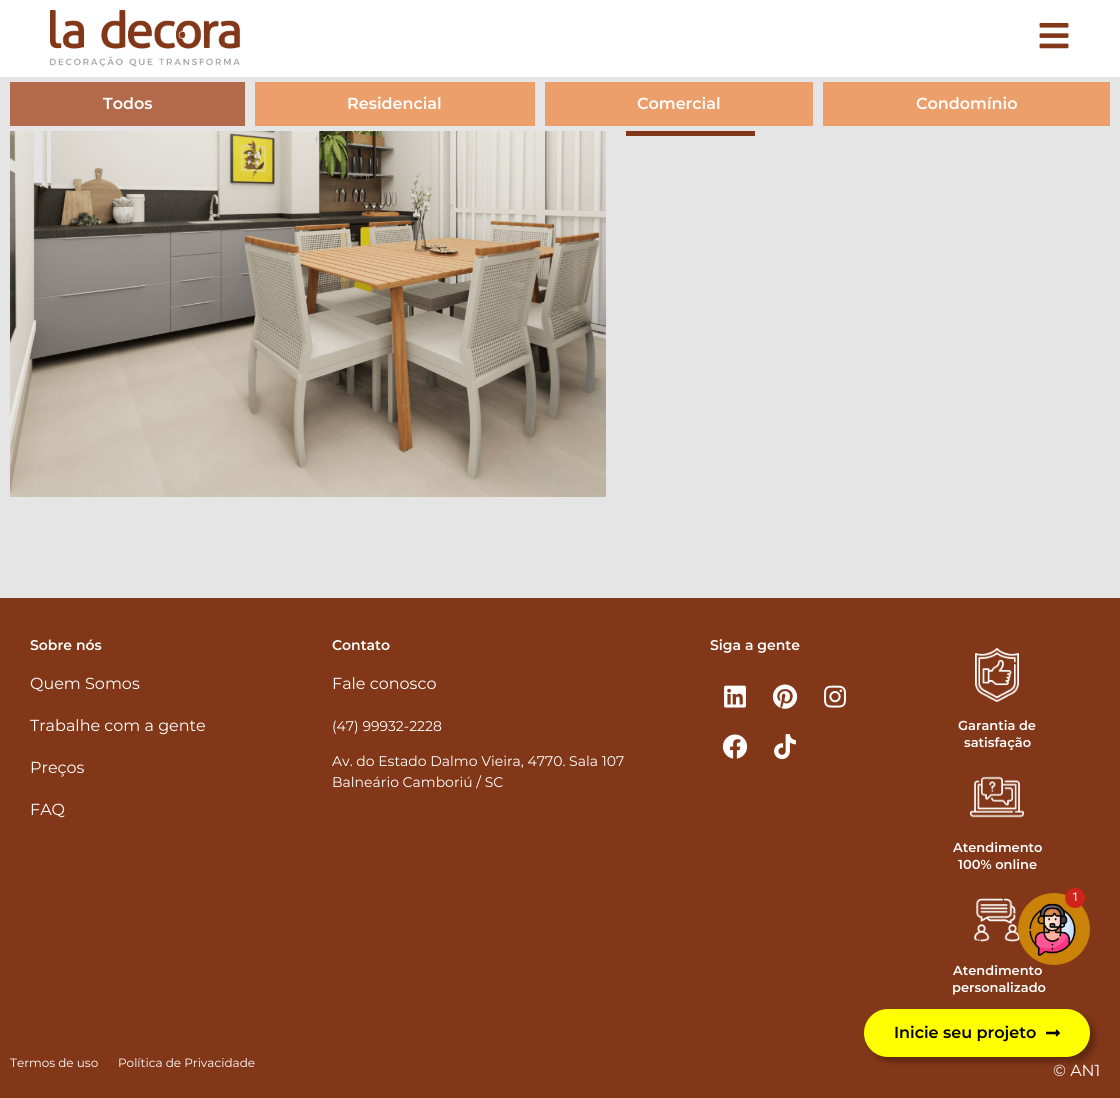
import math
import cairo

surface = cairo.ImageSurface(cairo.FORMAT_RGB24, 1120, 1098)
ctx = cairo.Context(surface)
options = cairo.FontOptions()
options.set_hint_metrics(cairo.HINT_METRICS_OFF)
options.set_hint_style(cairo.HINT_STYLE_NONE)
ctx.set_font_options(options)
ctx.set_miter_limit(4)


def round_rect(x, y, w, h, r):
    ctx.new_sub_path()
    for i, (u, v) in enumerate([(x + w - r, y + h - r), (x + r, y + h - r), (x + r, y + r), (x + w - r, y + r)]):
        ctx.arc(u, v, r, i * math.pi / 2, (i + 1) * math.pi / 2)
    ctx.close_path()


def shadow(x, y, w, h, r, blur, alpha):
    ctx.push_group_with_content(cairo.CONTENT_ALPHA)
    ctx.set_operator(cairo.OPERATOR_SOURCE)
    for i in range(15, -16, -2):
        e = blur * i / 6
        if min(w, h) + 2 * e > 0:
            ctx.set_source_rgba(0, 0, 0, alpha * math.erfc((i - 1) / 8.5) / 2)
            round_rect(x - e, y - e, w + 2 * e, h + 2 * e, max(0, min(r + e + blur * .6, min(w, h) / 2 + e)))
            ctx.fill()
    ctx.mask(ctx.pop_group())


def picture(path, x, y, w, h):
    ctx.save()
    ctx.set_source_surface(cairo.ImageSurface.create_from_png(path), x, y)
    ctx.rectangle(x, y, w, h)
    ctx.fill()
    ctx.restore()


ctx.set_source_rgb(0.898, 0.898, 0.898)
ctx.paint()
ctx.set_source_rgb(1, 1, 1)
ctx.rectangle(0, 0, 1120, 77)
ctx.fill()
picture("img1.png", 50, 10, 190, 58)
picture("img2.png", 1039, 23, 30, 26)
ctx.set_source_rgb(0.702, 0.416, 0.29)
ctx.rectangle(10, 82, 235, 44)
ctx.fill()
ctx.select_font_face("Montserrat SemiBold")
ctx.set_font_size(16)
ctx.set_source_rgb(1, 1, 1)
ctx.move_to(103, 109)
ctx.show_text("Todos")
ctx.set_source_rgb(0.925, 0.62, 0.42)
ctx.rectangle(255, 82, 280, 44)
ctx.fill()
ctx.set_source_rgb(1, 1, 1)
ctx.move_to(347, 109)
ctx.show_text("Residencial")
ctx.set_source_rgb(0.925, 0.62, 0.42)
ctx.rectangle(545, 82, 268, 44)
ctx.fill()
ctx.set_source_rgb(1, 1, 1)
ctx.move_to(637, 109)
ctx.show_text("Comercial")
ctx.set_source_rgb(0.925, 0.62, 0.42)
ctx.rectangle(823, 82, 287, 44)
ctx.fill()
ctx.set_source_rgb(1, 1, 1)
ctx.move_to(916, 109)
ctx.show_text("Condomínio")
picture("img3.png", 10, 131, 596, 366)
ctx.set_source_rgb(0.51, 0.216, 0.094)
ctx.rectangle(626, 131, 129, 5)
ctx.fill()
ctx.rectangle(0, 598, 1120, 500)
ctx.fill()
ctx.set_font_size(14)
ctx.set_source_rgb(1, 1, 1)
ctx.move_to(30, 650)
ctx.show_text("Sobre nós")
ctx.select_font_face("Montserrat")
ctx.set_font_size(16)
ctx.move_to(30, 689)
ctx.show_text("Quem Somos")
ctx.move_to(30, 731)
ctx.show_text("Trabalhe com a gente")
ctx.move_to(30, 773)
ctx.show_text("Preços")
ctx.move_to(30, 815)
ctx.show_text("FAQ")
ctx.select_font_face("Montserrat SemiBold")
ctx.set_font_size(14)
ctx.move_to(332, 650)
ctx.show_text("Contato")
ctx.select_font_face("Montserrat")
ctx.set_font_size(16)
ctx.move_to(332, 689)
ctx.show_text("Fale conosco")
ctx.set_font_size(14)
ctx.move_to(332, 731)
ctx.show_text("(47) 99932-2228")
ctx.move_to(332, 766)
ctx.show_text("Av. do Estado Dalmo Vieira, 4770. Sala 107")
ctx.move_to(332, 787)
ctx.show_text("Balneário Camboriú / SC")
ctx.select_font_face("Montserrat SemiBold")
ctx.move_to(710, 650)
ctx.show_text("Siga a gente")
picture("img4.png", 724, 685, 22, 23)
picture("img5.png", 772, 684, 26, 25)
picture("img6.png", 824, 685, 22, 23)
picture("img7.png", 722, 734, 26, 25)
picture("img8.png", 774, 734, 22, 26)
ctx.set_source_rgb(0, 0, 0)
shadow(869, 1014, 226, 48, 24, 3, 0.28)
ctx.set_source_rgb(1, 1, 0)
round_rect(864, 1009, 226, 48, 24)
ctx.fill()
ctx.set_font_size(16)
ctx.set_source_rgb(0, 0, 0)
ctx.move_to(894, 1038)
ctx.show_text("Inicie seu projeto")
picture("img9.png", 1046, 1029, 14, 8)
picture("img10.png", 975, 648, 44, 54)
ctx.set_font_size(13)
ctx.set_source_rgb(1, 1, 1)
ctx.move_to(958, 730)
ctx.show_text("Garantia de")
ctx.move_to(964, 747)
ctx.show_text("satisfação")
picture("img11.png", 970, 776, 54, 42)
ctx.move_to(953, 852)
ctx.show_text("Atendimento")
ctx.move_to(958, 869)
ctx.show_text("100% online")
picture("img12.png", 974, 898, 46, 44)
ctx.move_to(953, 975)
ctx.show_text("Atendimento")
ctx.move_to(952, 992)
ctx.show_text("personalizado")
ctx.select_font_face("Montserrat")
ctx.set_font_size(12)
ctx.move_to(10, 1067)
ctx.show_text("Termos de uso")
ctx.move_to(118, 1067)
ctx.show_text("Política de Privacidade")
ctx.set_font_size(16)
ctx.move_to(1053, 1076)
ctx.show_text("© AN1")
ctx.set_source_rgb(0.796, 0.51, 0.039)
ctx.new_path()
ctx.arc(1054, 929, 36, 0, 2 * math.pi)
ctx.fill()
picture("img13.png", 1029, 903, 47, 53)
ctx.set_source_rgb(0.816, 0.141, 0.106)
ctx.arc(1075, 898, 10, 0, 2 * math.pi)
ctx.fill()
ctx.select_font_face("Roboto")
ctx.set_font_size(12)
ctx.set_source_rgb(1, 1, 1)
ctx.move_to(1072, 901)
ctx.show_text("1")
surface.write_to_png("page.png")
